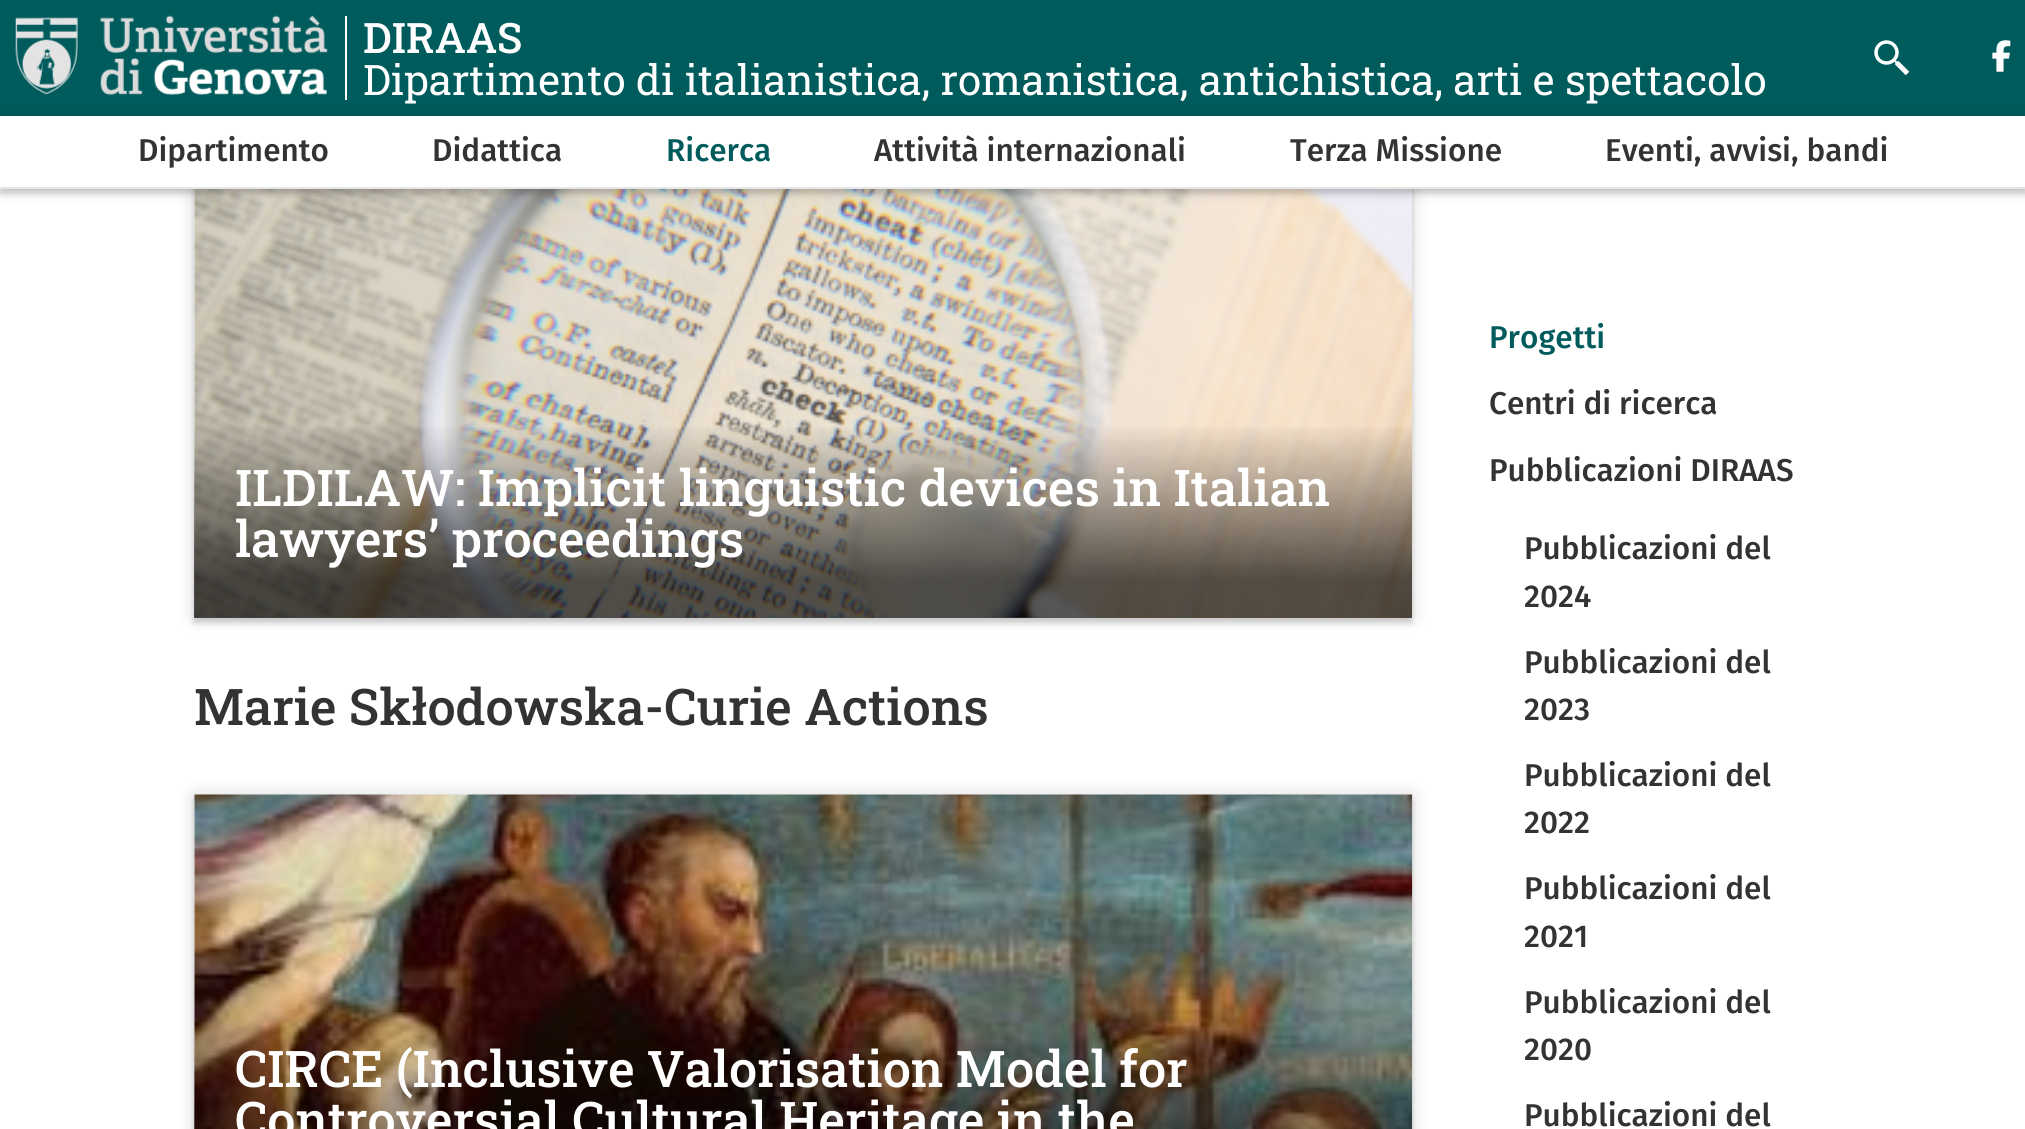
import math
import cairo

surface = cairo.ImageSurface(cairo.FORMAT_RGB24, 2025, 1129)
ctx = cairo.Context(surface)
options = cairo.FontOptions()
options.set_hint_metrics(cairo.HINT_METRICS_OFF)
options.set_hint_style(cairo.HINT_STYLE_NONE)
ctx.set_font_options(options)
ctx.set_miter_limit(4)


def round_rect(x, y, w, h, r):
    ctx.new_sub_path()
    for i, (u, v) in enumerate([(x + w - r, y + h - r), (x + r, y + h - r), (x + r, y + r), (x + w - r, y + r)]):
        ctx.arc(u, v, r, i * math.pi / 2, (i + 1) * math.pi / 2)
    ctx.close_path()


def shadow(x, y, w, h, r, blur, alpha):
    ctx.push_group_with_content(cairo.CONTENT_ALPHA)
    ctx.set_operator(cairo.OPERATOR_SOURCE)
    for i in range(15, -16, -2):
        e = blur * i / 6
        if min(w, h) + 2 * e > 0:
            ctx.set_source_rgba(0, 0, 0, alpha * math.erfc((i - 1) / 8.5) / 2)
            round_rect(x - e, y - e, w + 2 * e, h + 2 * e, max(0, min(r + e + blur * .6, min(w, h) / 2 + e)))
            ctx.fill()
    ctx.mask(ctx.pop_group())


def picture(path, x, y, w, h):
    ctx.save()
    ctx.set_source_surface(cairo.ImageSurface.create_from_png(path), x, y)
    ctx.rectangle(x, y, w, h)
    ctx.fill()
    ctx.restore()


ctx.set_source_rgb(1, 1, 1)
ctx.paint()
ctx.set_source_rgb(0, 0.357, 0.361)
ctx.rectangle(0, 0, 2025, 116)
ctx.fill()
picture("img1.png", 15, 15, 313, 80)
ctx.set_source_rgb(1, 1, 1)
ctx.rectangle(345, 16, 2, 84)
ctx.fill()
ctx.select_font_face("Roboto Slab Medium")
ctx.set_font_size(42)
ctx.move_to(363, 53)
ctx.show_text("DIRAAS")
ctx.select_font_face("Roboto Slab")
ctx.move_to(363, 95)
ctx.show_text("Dipartimento di italianistica, romanistica, antichistica, arti e spettacolo")
picture("img2.png", 1874, 40, 36, 36)
picture("img3.png", 1992, 40, 19, 32)
ctx.set_source_rgb(0, 0, 0)
shadow(194, 168, 1218, 455, 0, 2.5, 0.15)
shadow(194, 163, 1218, 455, 0, 9, 0.15)
ctx.set_source_rgb(1, 1, 1)
ctx.rectangle(194, 189, 1218, 429)
ctx.fill()
picture("img4.png", 194, 189, 1219, 429)
ctx.set_source_rgb(0, 0, 0)
shadow(0, 121, 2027, 73, 0, 2.5, 0.15)
shadow(0, 116, 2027, 73, 0, 9, 0.15)
ctx.set_source_rgb(1, 1, 1)
ctx.rectangle(0, 116, 2025, 71)
ctx.fill()
ctx.set_source_rgb(0.902, 0.902, 0.902)
ctx.rectangle(0, 187, 2025, 2)
ctx.fill()
ctx.select_font_face("Fira Sans Medium")
ctx.set_font_size(31.5)
ctx.set_source_rgb(0.2, 0.2, 0.2)
ctx.move_to(138, 161)
ctx.show_text("Dipartimento")
ctx.move_to(432, 161)
ctx.show_text("Didattica")
ctx.set_source_rgb(0, 0.357, 0.361)
ctx.move_to(666, 161)
ctx.show_text("Ricerca")
ctx.set_source_rgb(0.2, 0.2, 0.2)
ctx.move_to(874, 161)
ctx.show_text("Attività internazionali")
ctx.move_to(1290, 161)
ctx.show_text("Terza Missione")
ctx.move_to(1605, 161)
ctx.show_text("Eventi, avvisi, bandi")
gradient = cairo.LinearGradient(803, 422, 803, 618)
gradient.add_color_stop_rgba(0, 0, 0, 0, 0)
gradient.add_color_stop_rgba(0.8, 0, 0, 0, 0.65)
ctx.set_source(gradient)
ctx.rectangle(194, 427, 1218, 191)
ctx.fill()
ctx.select_font_face("Roboto Slab Medium")
ctx.set_font_size(50.5)
ctx.set_source_rgb(1, 1, 1)
ctx.move_to(235, 506)
ctx.show_text("ILDILAW: Implicit linguistic devices in Italian")
ctx.move_to(235, 557)
ctx.show_text("lawyers’ proceedings")
ctx.set_source_rgb(0.2, 0.2, 0.2)
ctx.move_to(194, 725)
ctx.show_text("Marie Skłodowska-Curie Actions")
ctx.set_source_rgb(0, 0, 0)
shadow(194, 800, 1218, 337, 0, 2.5, 0.15)
shadow(194, 795, 1218, 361, 0, 9, 0.15)
ctx.set_source_rgb(1, 1, 1)
ctx.rectangle(194, 795, 1, 334)
ctx.fill()
picture("img5.png", 194, 794, 1219, 335)
gradient = cairo.LinearGradient(803, 1003, 803, 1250)
gradient.add_color_stop_rgba(0, 0, 0, 0, 0)
gradient.add_color_stop_rgba(0.8, 0, 0, 0, 0.65)
ctx.set_source(gradient)
ctx.rectangle(194, 1010, 1218, 119)
ctx.fill()
ctx.set_source_rgb(1, 1, 1)
ctx.move_to(235, 1087)
ctx.show_text("CIRCE (Inclusive Valorisation Model for")
ctx.move_to(235, 1138)
ctx.show_text("Controversial Cultural Heritage in the")
ctx.select_font_face("Fira Sans Medium")
ctx.set_font_size(31.5)
ctx.set_source_rgb(0, 0.357, 0.361)
ctx.move_to(1489, 348)
ctx.show_text("Progetti")
ctx.set_source_rgb(0.2, 0.2, 0.2)
ctx.move_to(1489, 414)
ctx.show_text("Centri di ricerca")
ctx.move_to(1489, 481)
ctx.show_text("Pubblicazioni DIRAAS")
ctx.move_to(1524, 559)
ctx.show_text("Pubblicazioni del")
ctx.move_to(1524, 607)
ctx.show_text("2024")
ctx.move_to(1524, 673)
ctx.show_text("Pubblicazioni del")
ctx.move_to(1524, 720)
ctx.show_text("2023")
ctx.move_to(1524, 786)
ctx.show_text("Pubblicazioni del")
ctx.move_to(1524, 833)
ctx.show_text("2022")
ctx.move_to(1524, 899)
ctx.show_text("Pubblicazioni del")
ctx.move_to(1524, 947)
ctx.show_text("2021")
ctx.move_to(1524, 1013)
ctx.show_text("Pubblicazioni del")
ctx.move_to(1524, 1060)
ctx.show_text("2020")
ctx.move_to(1524, 1126)
ctx.show_text("Pubblicazioni del")
surface.write_to_png("page.png")
